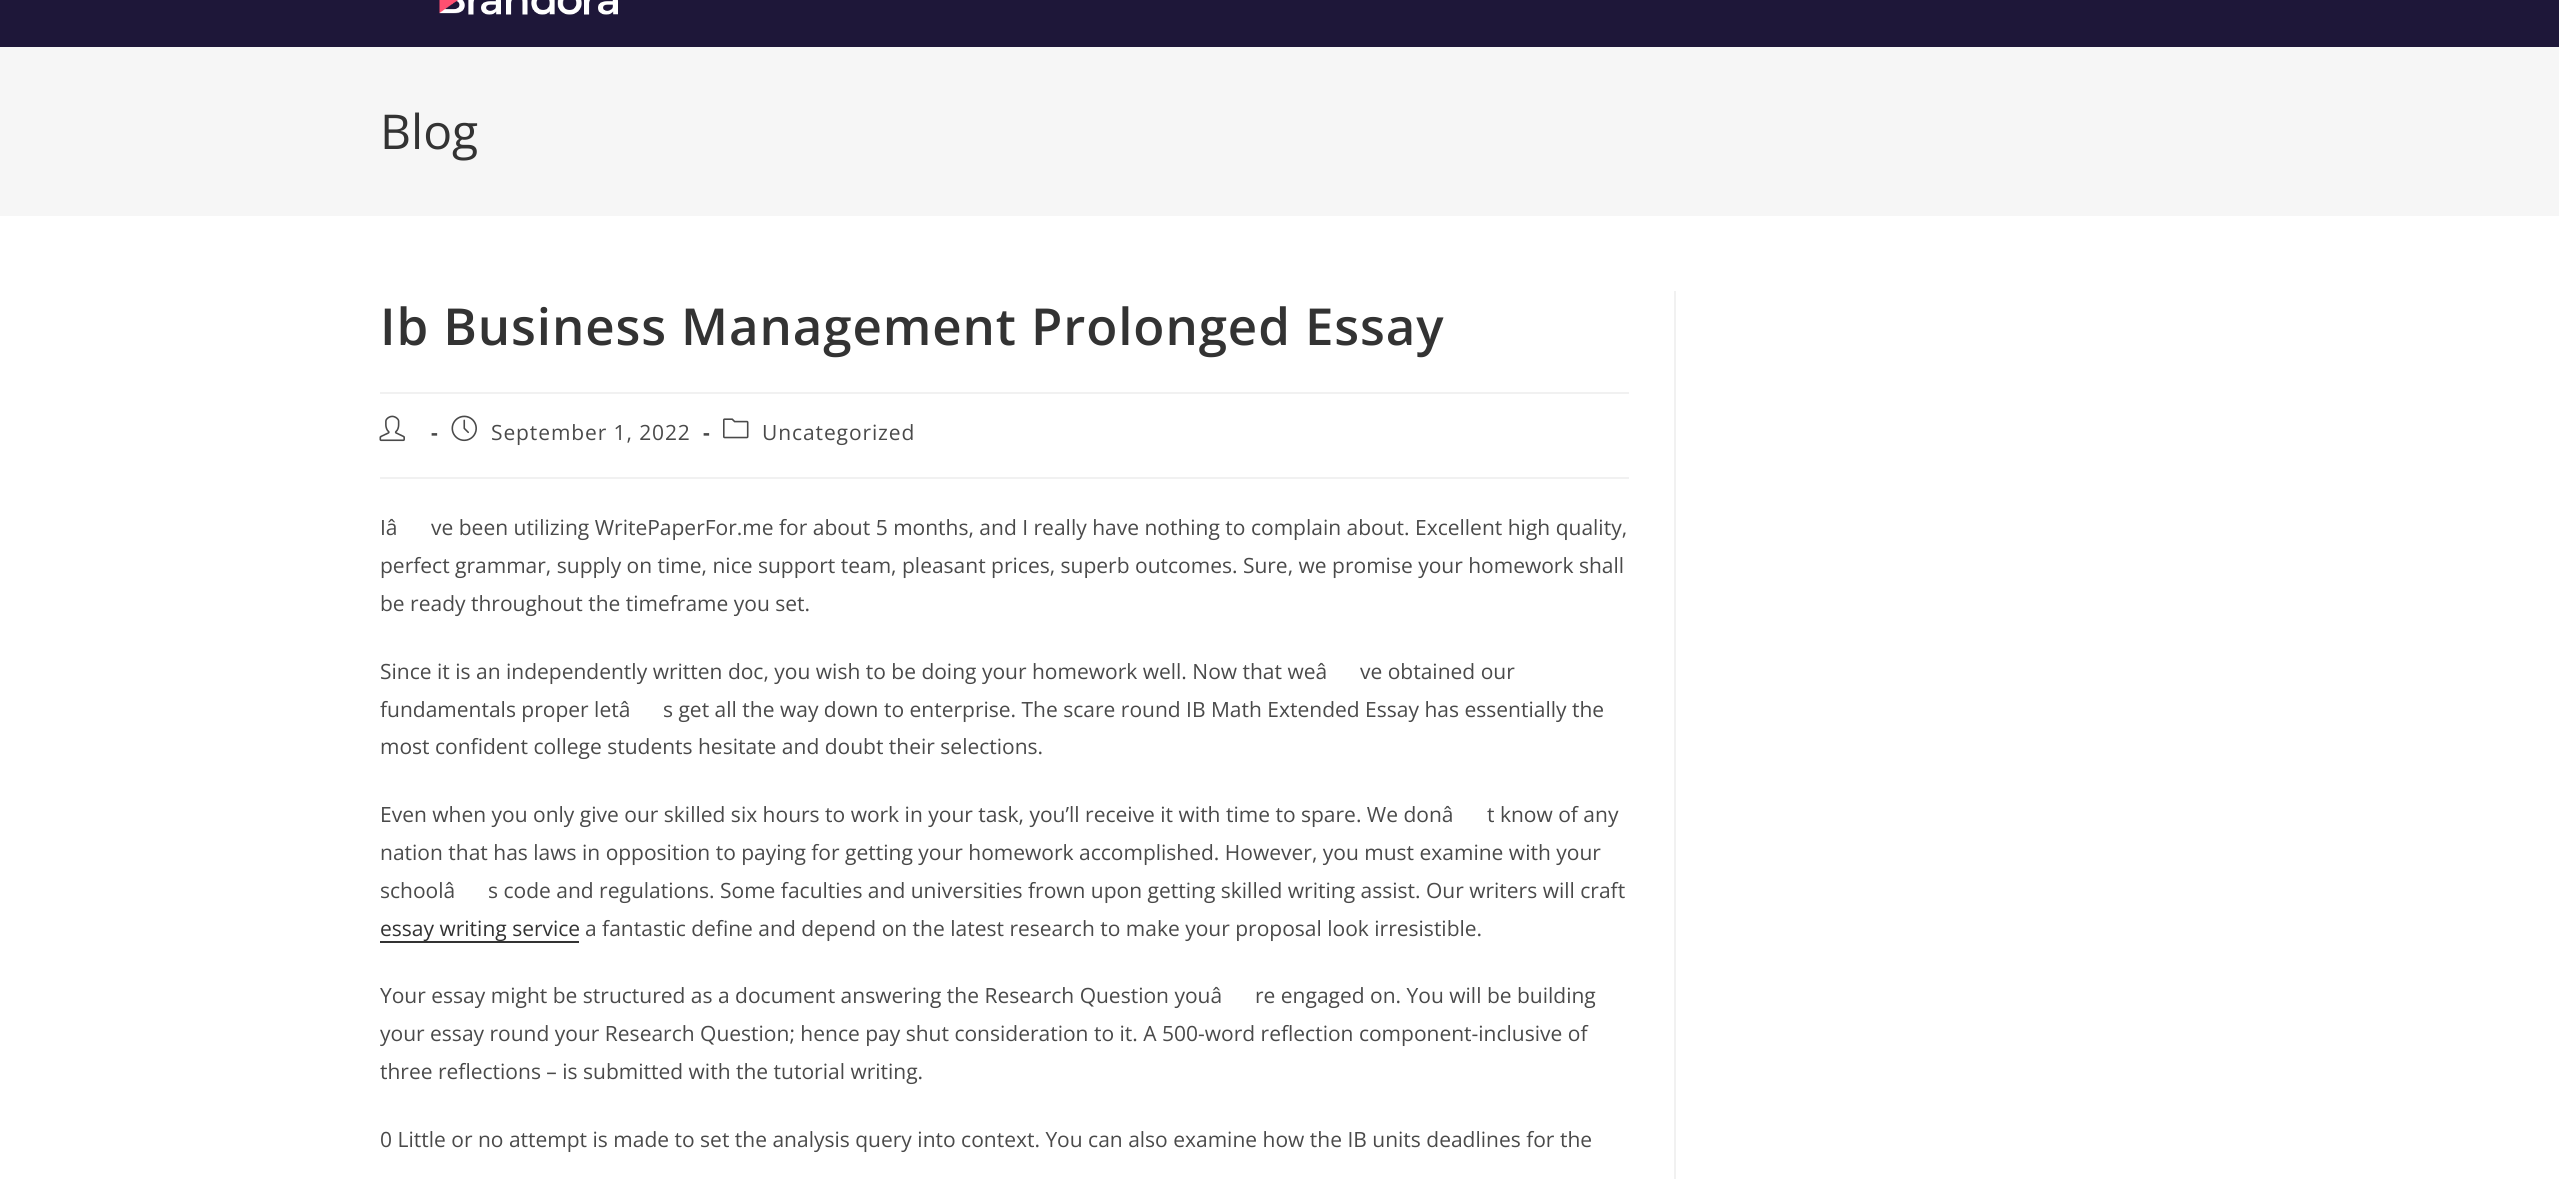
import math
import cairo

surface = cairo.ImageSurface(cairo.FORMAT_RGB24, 2559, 1179)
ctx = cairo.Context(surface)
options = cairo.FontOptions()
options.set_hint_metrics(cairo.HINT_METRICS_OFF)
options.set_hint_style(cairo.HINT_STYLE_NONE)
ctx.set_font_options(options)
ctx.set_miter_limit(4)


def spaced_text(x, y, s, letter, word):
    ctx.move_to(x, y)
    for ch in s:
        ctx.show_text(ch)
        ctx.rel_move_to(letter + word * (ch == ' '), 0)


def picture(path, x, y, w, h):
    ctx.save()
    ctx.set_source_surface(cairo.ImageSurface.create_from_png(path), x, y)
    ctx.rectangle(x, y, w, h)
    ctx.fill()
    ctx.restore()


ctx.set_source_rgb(1, 1, 1)
ctx.paint()
ctx.set_source_rgb(0.118, 0.09, 0.224)
ctx.rectangle(0, 0, 2559, 47)
ctx.fill()
picture("img1.png", 439, 0, 179, 15)
ctx.set_source_rgb(0.961, 0.961, 0.961)
ctx.rectangle(0, 47, 2559, 169)
ctx.fill()
ctx.select_font_face("Open Sans")
ctx.set_font_size(48)
ctx.set_source_rgb(0.2, 0.2, 0.2)
ctx.move_to(380, 149)
ctx.show_text("Blog")
ctx.set_source_rgb(0.945, 0.945, 0.945)
ctx.rectangle(1674, 291, 2, 888)
ctx.fill()
ctx.rectangle(380, 392, 1249, 2)
ctx.fill()
ctx.select_font_face("Open Sans SemiBold")
ctx.set_font_size(51)
ctx.set_source_rgb(0.2, 0.2, 0.2)
spaced_text(380, 345, "Ib Business Management Prolonged Essay", 0.9, 0)
ctx.set_source_rgb(0.945, 0.945, 0.945)
ctx.rectangle(380, 477, 1249, 2)
ctx.fill()
picture("img2.png", 379, 415, 26, 27)
ctx.select_font_face("Open Sans", cairo.FONT_SLANT_NORMAL, cairo.FONT_WEIGHT_BOLD)
ctx.set_font_size(21)
ctx.set_source_rgb(0.29, 0.29, 0.29)
spaced_text(431, 440, "-", 0.9, 0)
picture("img3.png", 451, 415, 26, 27)
ctx.select_font_face("Open Sans")
spaced_text(491, 440, "September 1, 2022", 0.9, 0)
ctx.select_font_face("Open Sans", cairo.FONT_SLANT_NORMAL, cairo.FONT_WEIGHT_BOLD)
spaced_text(703, 440, "-", 0.9, 0)
picture("img4.png", 723, 418, 26, 21)
ctx.select_font_face("Open Sans")
spaced_text(762, 440, "Uncategorized", 0.9, 0)
ctx.move_to(380, 535)
ctx.show_text("Iâ")
ctx.move_to(431, 535)
ctx.show_text("ve been utilizing WritePaperFor.me for about 5 months, and I really have nothing to complain about. Excellent high quality,")
ctx.move_to(380, 573)
ctx.show_text("perfect grammar, supply on time, nice support team, pleasant prices, superb outcomes. Sure, we promise your homework shall")
ctx.move_to(380, 611)
ctx.show_text("be ready throughout the timeframe you set.")
ctx.move_to(380, 679)
ctx.show_text("Since it is an independently written doc, you wish to be doing your homework well. Now that weâ")
ctx.move_to(1360, 679)
ctx.show_text("ve obtained our")
ctx.move_to(380, 717)
ctx.show_text("fundamentals proper letâ")
ctx.move_to(663, 717)
ctx.show_text("s get all the way down to enterprise. The scare round IB Math Extended Essay has essentially the")
ctx.move_to(380, 754)
ctx.show_text("most confident college students hesitate and doubt their selections.")
ctx.move_to(380, 822)
ctx.show_text("Even when you only give our skilled six hours to work in your task, you’ll receive it with time to spare. We donâ")
ctx.move_to(1487, 822)
ctx.show_text("t know of any")
ctx.move_to(380, 860)
ctx.show_text("nation that has laws in opposition to paying for getting your homework accomplished. However, you must examine with your")
ctx.move_to(380, 898)
ctx.show_text("schoolâ")
ctx.move_to(488, 898)
ctx.show_text("s code and regulations. Some faculties and universities frown upon getting skilled writing assist. Our writers will craft")
ctx.set_source_rgb(0.2, 0.2, 0.2)
ctx.rectangle(380, 941, 199, 2)
ctx.fill()
ctx.move_to(380, 936)
ctx.show_text("essay writing service")
ctx.set_source_rgb(0.29, 0.29, 0.29)
ctx.move_to(585, 936)
ctx.show_text("a fantastic define and depend on the latest research to make your proposal look irresistible.")
ctx.move_to(380, 1003)
ctx.show_text("Your essay might be structured as a document answering the Research Question youâ")
ctx.move_to(1255, 1003)
ctx.show_text("re engaged on. You will be building")
ctx.move_to(380, 1041)
ctx.show_text("your essay round your Research Question; hence pay shut consideration to it. A 500-word reflection component-inclusive of")
ctx.move_to(380, 1079)
ctx.show_text("three reflections – is submitted with the tutorial writing.")
ctx.move_to(380, 1147)
ctx.show_text("0 Little or no attempt is made to set the analysis query into context. You can also examine how the IB units deadlines for the")
surface.write_to_png("page.png")
